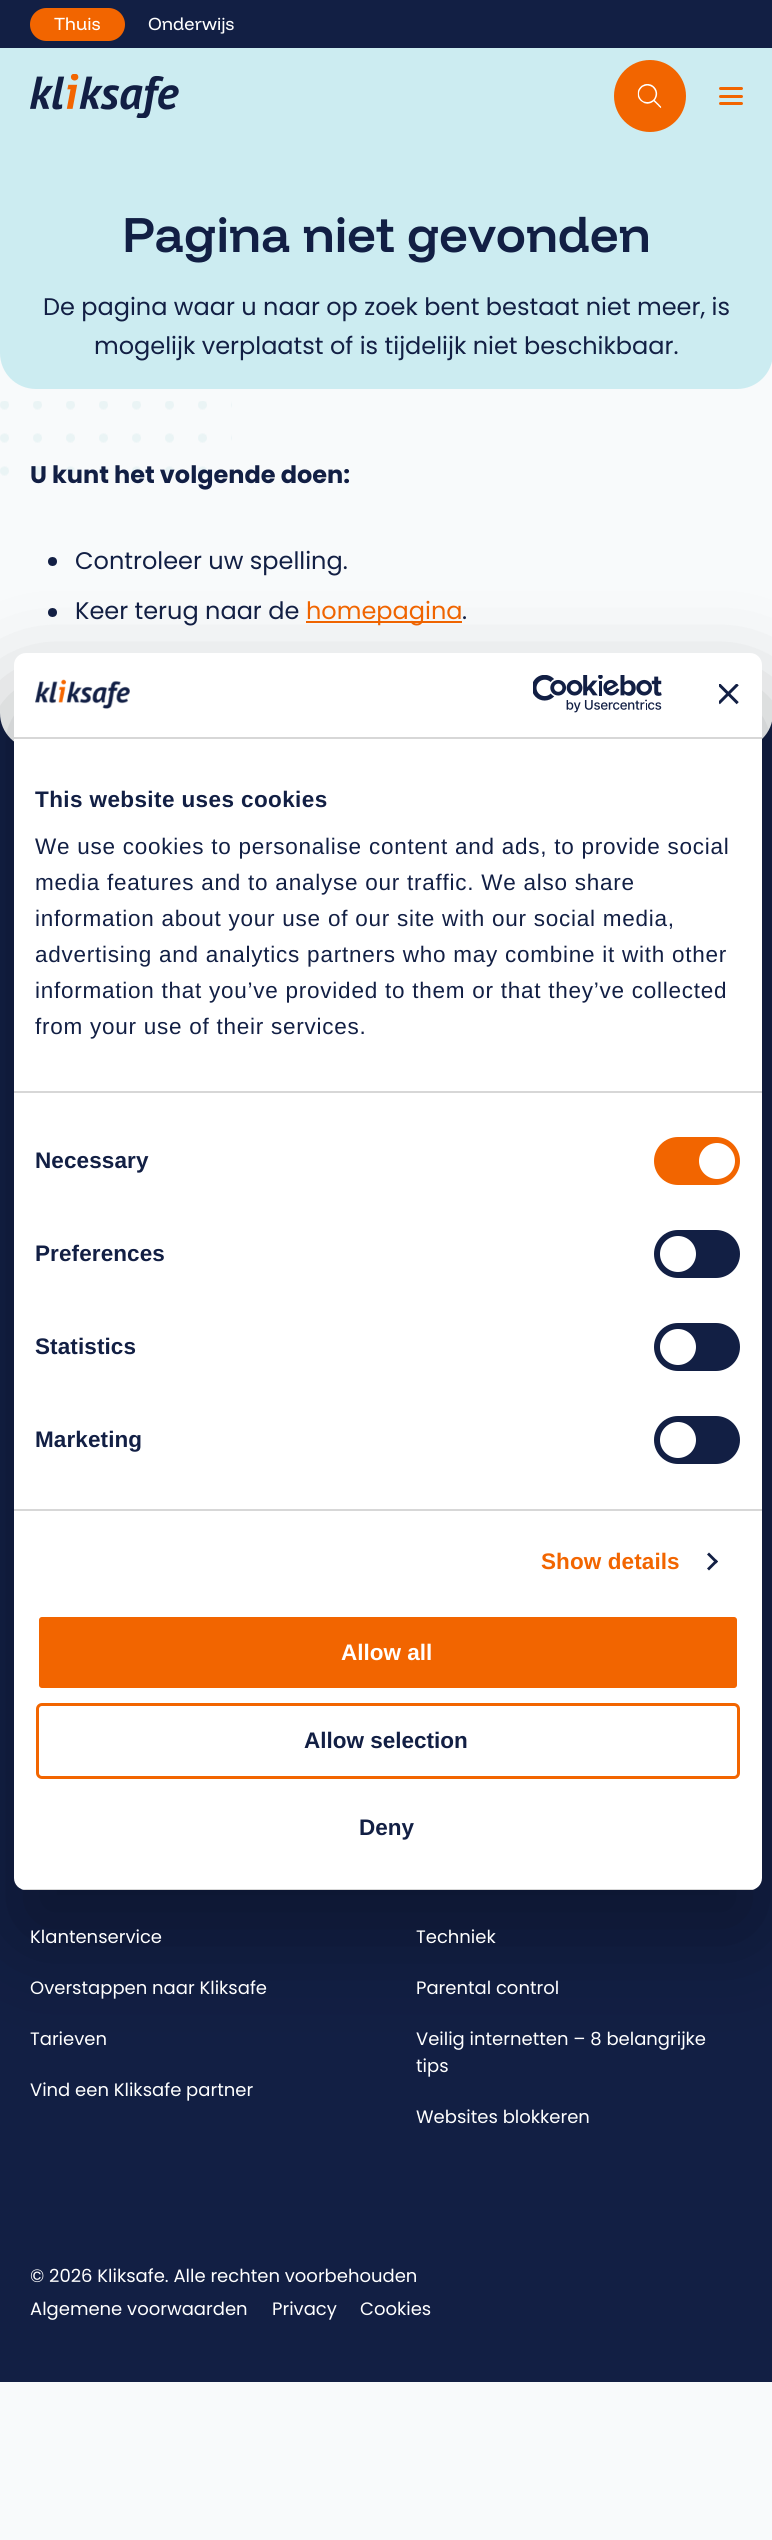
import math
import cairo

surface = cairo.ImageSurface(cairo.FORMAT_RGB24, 772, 2540)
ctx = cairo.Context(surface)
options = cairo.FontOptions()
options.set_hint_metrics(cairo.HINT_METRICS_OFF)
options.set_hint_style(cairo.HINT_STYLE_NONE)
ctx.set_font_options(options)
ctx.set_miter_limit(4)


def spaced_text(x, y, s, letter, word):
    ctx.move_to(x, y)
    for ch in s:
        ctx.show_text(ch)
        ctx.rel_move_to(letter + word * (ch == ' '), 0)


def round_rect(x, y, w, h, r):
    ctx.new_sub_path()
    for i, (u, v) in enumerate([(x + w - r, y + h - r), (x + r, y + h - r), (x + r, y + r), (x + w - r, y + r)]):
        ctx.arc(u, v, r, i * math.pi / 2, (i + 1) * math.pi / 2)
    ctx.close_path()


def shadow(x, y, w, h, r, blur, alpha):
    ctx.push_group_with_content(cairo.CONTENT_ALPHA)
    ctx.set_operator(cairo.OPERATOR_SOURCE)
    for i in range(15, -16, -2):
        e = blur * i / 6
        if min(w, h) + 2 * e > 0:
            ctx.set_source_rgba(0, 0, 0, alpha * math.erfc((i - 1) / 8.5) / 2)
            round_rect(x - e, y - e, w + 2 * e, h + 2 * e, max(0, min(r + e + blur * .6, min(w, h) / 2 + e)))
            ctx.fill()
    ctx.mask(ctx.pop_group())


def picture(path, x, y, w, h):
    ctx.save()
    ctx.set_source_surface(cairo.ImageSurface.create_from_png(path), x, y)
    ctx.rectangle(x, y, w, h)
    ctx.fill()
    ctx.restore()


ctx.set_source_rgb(0.969, 0.98, 0.984)
ctx.paint()
ctx.set_source_rgb(0.071, 0.122, 0.267)
ctx.rectangle(0, 713, 772, 1669)
ctx.fill()
ctx.set_source_rgb(0.969, 0.98, 0.984)
ctx.new_path()
ctx.move_to(0, 0)
ctx.line_to(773, 0)
ctx.line_to(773, 713)
ctx.curve_to(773, 733, 757, 749, 737, 749)
ctx.line_to(36, 749)
ctx.curve_to(16, 749, 0, 733, 0, 713)
ctx.close_path()
ctx.fill()
ctx.set_source_rgb(0.071, 0.122, 0.267)
ctx.rectangle(0, 0, 772, 48)
ctx.fill()
ctx.set_source_rgb(0.949, 0.396, 0)
round_rect(30, 8, 95, 33, 16.5)
ctx.fill()
ctx.select_font_face("Funnel Display")
ctx.set_font_size(18)
ctx.set_source_rgb(1, 1, 1)
ctx.move_to(54, 30)
ctx.show_text("Thuis")
ctx.move_to(148, 30)
ctx.show_text("Onderwijs")
ctx.set_source_rgb(0.8, 0.925, 0.945)
ctx.rectangle(0, 48, 772, 96)
ctx.fill()
picture("img1.png", 30, 74, 149, 44)
ctx.set_source_rgb(0.949, 0.396, 0)
ctx.arc(650, 96, 36, 0, 2 * math.pi)
ctx.fill()
picture("img2.png", 637, 84, 25, 24)
round_rect(719, 87, 24, 3, 1.5)
ctx.fill()
round_rect(719, 95, 24, 3, 1.5)
ctx.fill()
round_rect(719, 102, 24, 3, 1.5)
ctx.fill()
ctx.set_source_rgb(0.8, 0.925, 0.945)
ctx.new_path()
ctx.move_to(0, 144)
ctx.line_to(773, 144)
ctx.line_to(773, 353)
ctx.curve_to(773, 373, 757, 389, 737, 389)
ctx.line_to(36, 389)
ctx.curve_to(16, 389, 0, 373, 0, 353)
ctx.close_path()
ctx.fill()
ctx.select_font_face("Funnel Display SemiBold")
ctx.set_font_size(50.25)
ctx.set_source_rgb(0.071, 0.122, 0.267)
ctx.move_to(122, 252)
ctx.show_text("Pagina niet gevonden")
ctx.select_font_face("Poppins")
ctx.set_font_size(24)
ctx.move_to(43, 315)
ctx.show_text("De pagina waar u naar op zoek bent bestaat niet meer, is")
ctx.move_to(94, 354)
ctx.show_text("mogelijk verplaatst of is tijdelijk niet beschikbaar.")
picture("img3.png", 0, 401, 232, 75)
ctx.select_font_face("Poppins", cairo.FONT_SLANT_NORMAL, cairo.FONT_WEIGHT_BOLD)
ctx.move_to(30, 483)
ctx.show_text("U kunt het volgende doen:")
ctx.new_path()
ctx.arc(52.5, 561.5, 4.5, 0, 2 * math.pi)
ctx.fill()
ctx.select_font_face("Poppins")
ctx.move_to(75, 569)
ctx.show_text("Controleer uw spelling.")
ctx.new_path()
ctx.arc(52.5, 612.5, 4.5, 0, 2 * math.pi)
ctx.fill()
ctx.move_to(75, 619)
ctx.show_text("Keer terug naar de")
ctx.set_source_rgb(0.949, 0.396, 0)
ctx.rectangle(306, 621, 156, 2)
ctx.fill()
ctx.move_to(306, 619)
ctx.show_text("homepagina")
ctx.set_source_rgb(0.071, 0.122, 0.267)
ctx.move_to(462, 619)
ctx.show_text(".")
ctx.set_source_rgb(0, 0, 0)
shadow(14, 701, 748, 1237, 12, 51, 0.3)
ctx.set_source_rgb(1, 1, 1)
round_rect(14, 653, 748, 1237, 12)
ctx.fill()
ctx.set_source_rgb(0.843, 0.843, 0.843)
ctx.rectangle(14, 737, 748, 2)
ctx.fill()
picture("img4.png", 35, 679, 95, 30)
picture("img5.png", 533, 675, 129, 38)
picture("img6.png", 719, 684, 20, 21)
ctx.rectangle(14, 1091, 748, 2)
ctx.fill()
ctx.select_font_face("Liberation Sans", cairo.FONT_SLANT_NORMAL, cairo.FONT_WEIGHT_BOLD)
ctx.set_font_size(22.5)
ctx.set_source_rgb(0.071, 0.122, 0.267)
spaced_text(35, 807, "This website uses cookies", 0.4, 0)
ctx.select_font_face("Liberation Sans")
spaced_text(35, 854, "We use cookies to personalise content and ads, to provide social", 0.75, 0)
spaced_text(35, 890, "media features and to analyse our traffic. We also share", 0.75, 0)
spaced_text(35, 926, "information about your use of our site with our social media,", 0.75, 0)
spaced_text(35, 962, "advertising and analytics partners who may combine it with other", 0.75, 0)
spaced_text(35, 998, "information that you’ve provided to them or that they’ve collected", 0.75, 0)
spaced_text(35, 1034, "from your use of their services.", 0.75, 0)
ctx.set_source_rgb(0.843, 0.843, 0.843)
ctx.rectangle(14, 1509, 748, 2)
ctx.fill()
ctx.select_font_face("Liberation Sans", cairo.FONT_SLANT_NORMAL, cairo.FONT_WEIGHT_BOLD)
ctx.set_source_rgb(0.071, 0.122, 0.267)
spaced_text(35, 1168, "Necessary", 0.1, 0)
ctx.set_source_rgb(0.949, 0.396, 0)
round_rect(654, 1137, 86, 48, 24)
ctx.fill()
ctx.set_source_rgb(1, 1, 1)
ctx.arc(717, 1161, 18, 0, 2 * math.pi)
ctx.fill()
ctx.set_source_rgb(0.071, 0.122, 0.267)
spaced_text(35, 1261, "Preferences", 0.1, 0)
round_rect(654, 1230, 86, 48, 24)
ctx.fill()
ctx.set_source_rgb(1, 1, 1)
ctx.arc(678, 1254, 18, 0, 2 * math.pi)
ctx.fill()
ctx.set_source_rgb(0.071, 0.122, 0.267)
spaced_text(35, 1354, "Statistics", 0.1, 0)
round_rect(654, 1323, 86, 48, 24)
ctx.fill()
ctx.set_source_rgb(1, 1, 1)
ctx.arc(678, 1347, 18, 0, 2 * math.pi)
ctx.fill()
ctx.set_source_rgb(0.071, 0.122, 0.267)
spaced_text(35, 1447, "Marketing", 0.1, 0)
round_rect(654, 1416, 86, 48, 24)
ctx.fill()
ctx.set_source_rgb(1, 1, 1)
ctx.arc(678, 1440, 18, 0, 2 * math.pi)
ctx.fill()
ctx.set_source_rgb(0.949, 0.396, 0)
spaced_text(541, 1569, "Show details", 0.1, 0)
ctx.set_source_rgb(0.071, 0.122, 0.267)
ctx.new_path()
ctx.move_to(709, 1552.5)
ctx.line_to(718, 1561.5)
ctx.line_to(716, 1563.5)
ctx.line_to(707, 1554.5)
ctx.close_path()
ctx.fill()
ctx.new_path()
ctx.move_to(716, 1559.5)
ctx.line_to(718, 1561.5)
ctx.line_to(709, 1570.5)
ctx.line_to(707, 1568.5)
ctx.close_path()
ctx.fill()
ctx.save()
round_rect(14, 653, 748, 1237, 12)
ctx.clip()
ctx.set_source_rgb(0.843, 0.843, 0.843)
ctx.rectangle(14, 1889, 748, 1)
ctx.fill()
ctx.restore()
ctx.set_source_rgb(0.949, 0.396, 0)
round_rect(37.5, 1615.5, 701, 74, 4.5)
ctx.fill_preserve()
ctx.set_source_rgb(1, 1, 1)
ctx.set_line_width(3)
ctx.stroke()
ctx.move_to(341, 1660)
ctx.show_text("Allow all")
round_rect(37.5, 1704.5, 701, 73, 4.5)
ctx.set_source_rgb(0.949, 0.396, 0)
ctx.stroke()
ctx.set_source_rgb(0.071, 0.122, 0.267)
ctx.move_to(304, 1748)
ctx.show_text("Allow selection")
ctx.move_to(359, 1835)
ctx.show_text("Deny")
ctx.select_font_face("Poppins")
ctx.set_font_size(18)
ctx.set_source_rgb(1, 1, 1)
ctx.move_to(30, 1943)
ctx.show_text("Klantenservice")
ctx.move_to(30, 1994)
ctx.show_text("Overstappen naar Kliksafe")
ctx.move_to(30, 2045)
ctx.show_text("Tarieven")
ctx.move_to(30, 2096)
ctx.show_text("Vind een Kliksafe partner")
ctx.move_to(416, 1943)
ctx.show_text("Techniek")
ctx.move_to(416, 1994)
ctx.show_text("Parental control")
ctx.move_to(416, 2045)
ctx.show_text("Veilig internetten – 8 belangrijke")
ctx.move_to(416, 2072)
ctx.show_text("tips")
ctx.move_to(416, 2123)
ctx.show_text("Websites blokkeren")
ctx.move_to(30, 2282)
ctx.show_text("© 2026 Kliksafe. Alle rechten voorbehouden")
ctx.move_to(30, 2315)
ctx.show_text("Algemene voorwaarden")
ctx.move_to(272, 2315)
ctx.show_text("Privacy")
ctx.move_to(360, 2315)
ctx.show_text("Cookies")
surface.write_to_png("page.png")
